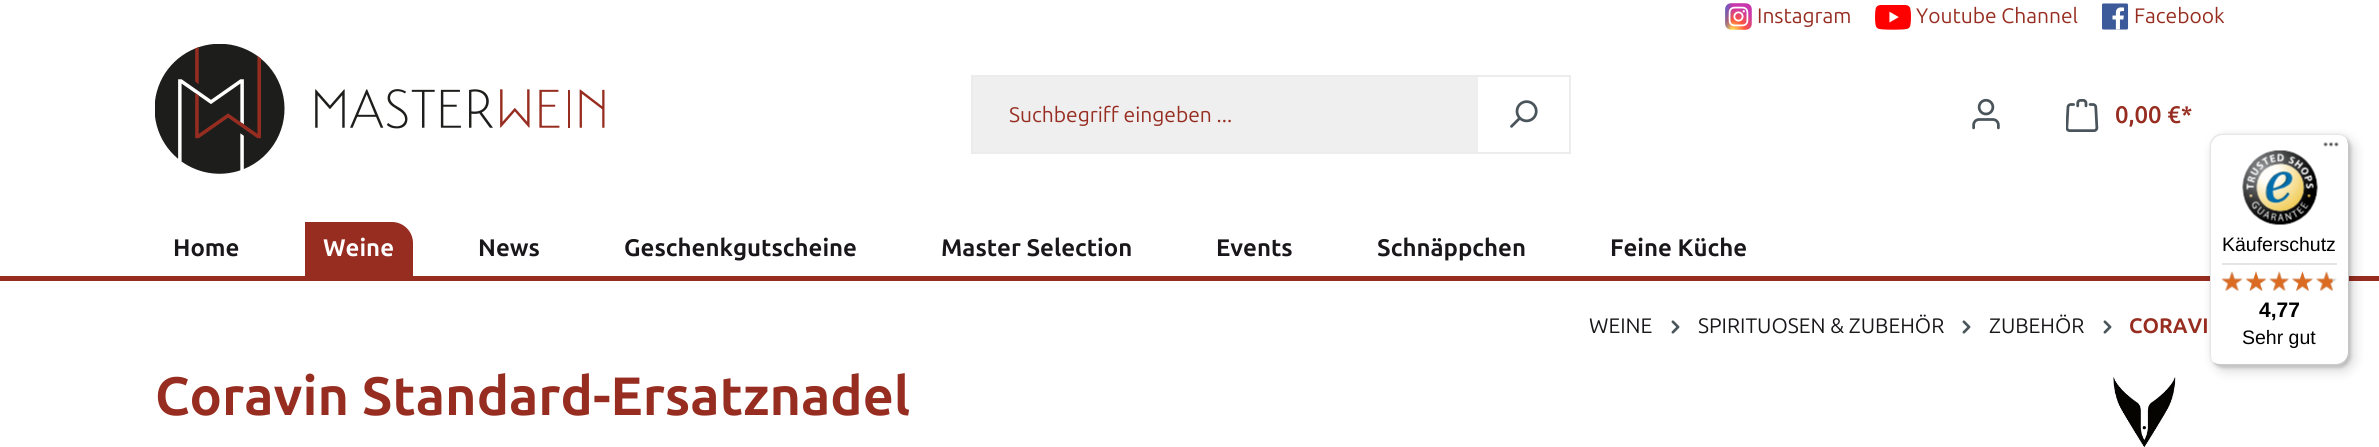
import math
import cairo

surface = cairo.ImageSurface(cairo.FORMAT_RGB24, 2379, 447)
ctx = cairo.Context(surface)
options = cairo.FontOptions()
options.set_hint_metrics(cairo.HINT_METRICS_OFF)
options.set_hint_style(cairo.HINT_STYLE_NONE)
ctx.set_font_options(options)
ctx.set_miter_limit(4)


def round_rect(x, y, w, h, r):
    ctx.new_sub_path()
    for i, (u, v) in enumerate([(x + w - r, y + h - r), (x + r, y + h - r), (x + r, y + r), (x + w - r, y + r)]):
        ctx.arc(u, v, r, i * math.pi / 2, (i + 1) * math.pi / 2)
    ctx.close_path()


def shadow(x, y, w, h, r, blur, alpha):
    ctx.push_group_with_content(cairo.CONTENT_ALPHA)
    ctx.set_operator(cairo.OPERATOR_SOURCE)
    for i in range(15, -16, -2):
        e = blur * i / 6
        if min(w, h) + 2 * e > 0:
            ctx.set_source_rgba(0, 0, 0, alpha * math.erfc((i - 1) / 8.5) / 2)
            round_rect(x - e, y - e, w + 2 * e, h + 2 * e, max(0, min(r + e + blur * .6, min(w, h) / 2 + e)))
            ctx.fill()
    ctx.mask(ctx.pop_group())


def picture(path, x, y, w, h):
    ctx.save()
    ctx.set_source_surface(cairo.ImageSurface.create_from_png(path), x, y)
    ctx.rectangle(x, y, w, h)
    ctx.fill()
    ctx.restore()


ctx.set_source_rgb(1, 1, 1)
ctx.paint()
picture("img1.png", 1725, 3, 27, 27)
ctx.select_font_face("Ubuntu")
ctx.set_font_size(21)
ctx.set_source_rgb(0.592, 0.176, 0.129)
ctx.move_to(1757, 23)
ctx.show_text("Instagram")
picture("img2.png", 1875, 5, 36, 25)
ctx.move_to(1916, 23)
ctx.show_text("Youtube Channel")
picture("img3.png", 2102, 3, 27, 27)
ctx.move_to(2134, 23)
ctx.show_text("Facebook")
picture("img4.png", 155, 44, 450, 130)
ctx.set_source_rgb(0.937, 0.937, 0.937)
ctx.rectangle(973, 77, 505, 75)
ctx.fill()
ctx.set_source_rgb(0.925, 0.925, 0.925)
ctx.rectangle(971, 75, 600, 2)
ctx.fill()
ctx.rectangle(971, 152, 507, 2)
ctx.fill()
ctx.rectangle(971, 75, 2, 78)
ctx.fill()
ctx.set_source_rgb(0.592, 0.176, 0.129)
ctx.move_to(1009, 122)
ctx.show_text("Suchbegriff eingeben ...")
ctx.set_source_rgb(0.925, 0.925, 0.925)
ctx.rectangle(1569, 75, 2, 78)
ctx.fill()
ctx.rectangle(1476, 152, 95, 2)
ctx.fill()
picture("img5.png", 1510, 100, 28, 28)
picture("img6.png", 1972, 98, 28, 32)
picture("img7.png", 2066, 99, 33, 33)
ctx.select_font_face("Ubuntu SemiBold")
ctx.set_font_size(24)
ctx.set_source_rgb(0.592, 0.176, 0.129)
ctx.move_to(2115, 123)
ctx.show_text("0,00 €*")
ctx.rectangle(0, 276, 2379, 5)
ctx.fill()
ctx.select_font_face("Ubuntu", cairo.FONT_SLANT_NORMAL, cairo.FONT_WEIGHT_BOLD)
ctx.set_source_rgb(0.102, 0.09, 0.106)
ctx.move_to(173, 256)
ctx.show_text("Home")
ctx.set_source_rgb(0.592, 0.176, 0.129)
ctx.new_path()
ctx.move_to(305, 222)
ctx.line_to(392, 222)
ctx.curve_to(403.5, 222, 413, 231.5, 413, 243)
ctx.line_to(413, 276)
ctx.line_to(305, 276)
ctx.close_path()
ctx.fill()
ctx.set_source_rgb(1, 1, 1)
ctx.move_to(323, 256)
ctx.show_text("Weine")
ctx.set_source_rgb(0.102, 0.09, 0.106)
ctx.move_to(478, 256)
ctx.show_text("News")
ctx.move_to(624, 256)
ctx.show_text("Geschenkgutscheine")
ctx.move_to(941, 256)
ctx.show_text("Master Selection")
ctx.move_to(1216, 256)
ctx.show_text("Events")
ctx.move_to(1377, 256)
ctx.show_text("Schnäppchen")
ctx.move_to(1610, 256)
ctx.show_text("Feine Küche")
ctx.set_source_rgb(0, 0, 0)
shadow(2214, 138, 140, 233, 12, 6, 0.15)
shadow(2211, 135, 140, 233, 12, 1.5, 0.15)
ctx.set_source_rgb(1, 1, 1)
round_rect(2210, 134, 139, 232, 12)
ctx.fill()
ctx.set_source_rgb(0.898, 0.898, 0.898)
ctx.new_path()
ctx.move_to(2223, 135)
ctx.line_to(2338, 135)
ctx.curve_to(2341, 135, 2343, 136, 2345, 137)
ctx.curve_to(2343, 135, 2340, 134, 2337, 134)
ctx.line_to(2222, 134)
ctx.curve_to(2215, 134, 2210, 139, 2210, 146)
ctx.line_to(2210, 354)
ctx.curve_to(2210, 356, 2211, 359, 2212, 361)
ctx.line_to(2211, 356)
ctx.line_to(2211, 147)
ctx.curve_to(2211, 140, 2216, 135, 2223, 135)
ctx.close_path()
ctx.fill()
ctx.set_source_rgba(0, 0, 0, 0.2)
ctx.new_path()
ctx.move_to(2213, 362)
ctx.curve_to(2215, 364, 2218, 366, 2222, 366)
ctx.line_to(2337, 366)
ctx.curve_to(2344, 366, 2349, 361, 2349, 354)
ctx.line_to(2349, 146)
ctx.curve_to(2349, 144, 2348, 141, 2347, 140)
ctx.line_to(2348, 144)
ctx.line_to(2348, 352)
ctx.curve_to(2348, 359, 2342, 364, 2336, 364)
ctx.line_to(2220, 364)
ctx.curve_to(2217, 364, 2215, 363, 2213, 362)
ctx.close_path()
ctx.fill()
ctx.set_source_rgba(0.196, 0.196, 0.196, 0.2)
ctx.new_path()
ctx.move_to(2214, 363)
ctx.curve_to(2216, 365, 2219, 366, 2222, 366)
ctx.line_to(2337, 366)
ctx.curve_to(2344, 366, 2349, 361, 2349, 354)
ctx.line_to(2349, 146)
ctx.curve_to(2349, 143, 2348, 140, 2346, 138)
ctx.curve_to(2347, 140, 2348, 142, 2348, 145)
ctx.line_to(2348, 353)
ctx.curve_to(2348, 360, 2343, 365, 2336, 365)
ctx.line_to(2221, 365)
ctx.curve_to(2218, 365, 2216, 364, 2214, 363)
ctx.close_path()
ctx.fill()
ctx.set_source_rgba(1, 1, 1, 0.3)
ctx.new_path()
ctx.move_to(2214, 363)
ctx.curve_to(2216, 365, 2219, 366, 2222, 366)
ctx.line_to(2337, 366)
ctx.curve_to(2344, 366, 2349, 361, 2349, 354)
ctx.line_to(2349, 146)
ctx.curve_to(2349, 143, 2348, 140, 2346, 138)
ctx.curve_to(2347, 140, 2348, 142, 2348, 145)
ctx.line_to(2348, 353)
ctx.curve_to(2348, 360, 2343, 365, 2336, 365)
ctx.line_to(2221, 365)
ctx.curve_to(2218, 365, 2216, 364, 2214, 363)
ctx.close_path()
ctx.fill()
picture("img8.png", 2323, 142, 16, 5)
picture("img9.png", 2242, 150, 76, 75)
ctx.select_font_face("Liberation Sans")
ctx.set_font_size(19.5)
ctx.set_source_rgb(0, 0, 0)
ctx.move_to(2222, 251)
ctx.show_text("Käuferschutz")
ctx.set_source_rgb(0.898, 0.898, 0.898)
ctx.rectangle(2222, 263, 115, 2)
ctx.fill()
picture("img15.png", 2222, 272, 20, 19)
picture("img10.png", 2221, 271, 22, 20)
picture("img16.png", 2246, 271, 20, 20)
picture("img11.png", 2246, 271, 20, 20)
picture("img17.png", 2269, 271, 20, 20)
picture("img12.png", 2269, 271, 20, 20)
picture("img18.png", 2292, 271, 21, 20)
picture("img13.png", 2292, 271, 21, 20)
picture("img19.png", 2316, 272, 21, 19)
picture("img14.png", 2316, 271, 17, 20)
ctx.select_font_face("Liberation Sans", cairo.FONT_SLANT_NORMAL, cairo.FONT_WEIGHT_BOLD)
ctx.set_font_size(21)
ctx.set_source_rgb(0, 0, 0)
ctx.move_to(2259, 317)
ctx.show_text("4,77")
ctx.select_font_face("Liberation Sans")
ctx.set_font_size(19.5)
ctx.move_to(2242, 344)
ctx.show_text("Sehr gut")
ctx.select_font_face("Ubuntu")
ctx.set_font_size(21)
ctx.set_source_rgb(0.102, 0.09, 0.106)
ctx.move_to(1589, 333)
ctx.show_text("WEINE")
picture("img20.png", 1671, 320, 9, 14)
ctx.move_to(1698, 333)
ctx.show_text("SPIRITUOSEN & ZUBEHÖR")
picture("img20.png", 1962, 320, 9, 14)
ctx.move_to(1989, 333)
ctx.show_text("ZUBEHÖR")
picture("img20.png", 2103, 320, 9, 14)
ctx.select_font_face("Ubuntu", cairo.FONT_SLANT_NORMAL, cairo.FONT_WEIGHT_BOLD)
ctx.set_source_rgb(0.592, 0.176, 0.129)
ctx.move_to(2129, 333)
ctx.show_text("CORAVI")
ctx.set_font_size(54)
ctx.move_to(155, 415)
ctx.show_text("Coravin Standard-Ersatznadel")
picture("img21.png", 2113, 377, 63, 70)
surface.write_to_png("page.png")
